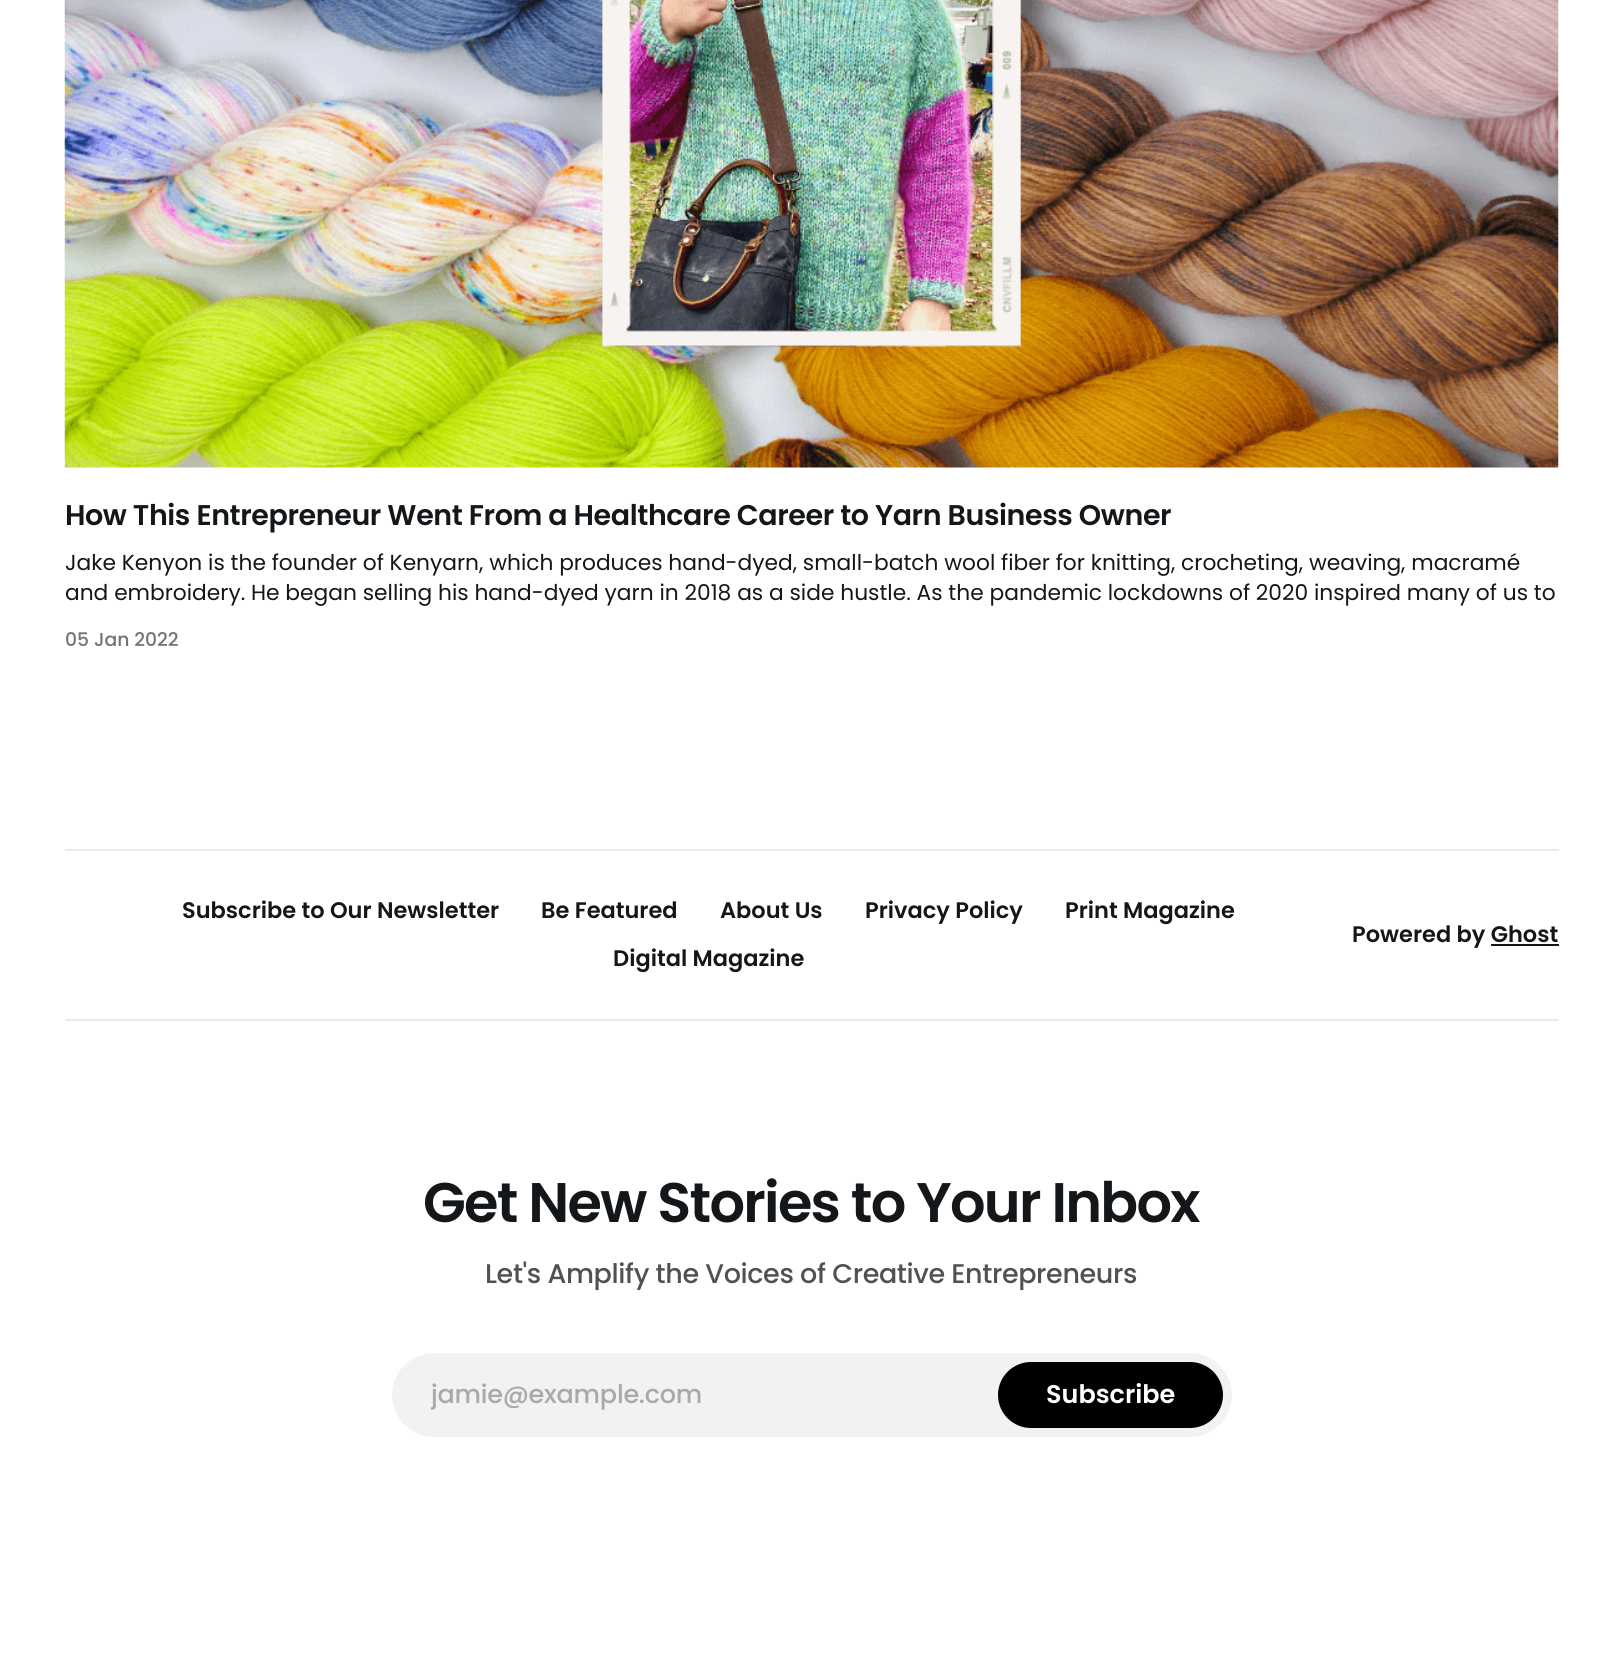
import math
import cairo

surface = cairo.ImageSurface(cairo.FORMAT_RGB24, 1622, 1659)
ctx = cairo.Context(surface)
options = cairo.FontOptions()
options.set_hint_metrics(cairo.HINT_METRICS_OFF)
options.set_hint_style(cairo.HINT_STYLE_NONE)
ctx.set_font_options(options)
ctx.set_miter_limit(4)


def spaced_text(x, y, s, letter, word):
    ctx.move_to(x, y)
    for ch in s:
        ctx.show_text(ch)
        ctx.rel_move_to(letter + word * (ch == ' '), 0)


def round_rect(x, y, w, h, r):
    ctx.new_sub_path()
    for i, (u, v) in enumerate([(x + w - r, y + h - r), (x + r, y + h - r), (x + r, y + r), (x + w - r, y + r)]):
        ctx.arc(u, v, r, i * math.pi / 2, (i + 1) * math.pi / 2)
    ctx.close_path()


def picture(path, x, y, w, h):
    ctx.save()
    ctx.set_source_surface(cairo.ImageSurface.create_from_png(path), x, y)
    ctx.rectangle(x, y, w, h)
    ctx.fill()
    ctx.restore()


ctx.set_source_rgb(1, 1, 1)
ctx.paint()
picture("img1.png", 64, 0, 1495, 468)
ctx.select_font_face("Poppins SemiBold")
ctx.set_font_size(28.5)
ctx.set_source_rgb(0.082, 0.09, 0.102)
spaced_text(65, 525, "How This Entrepreneur Went From a Healthcare Career to Yarn Business Owner", -0.4, 0)
ctx.select_font_face("Poppins")
ctx.set_font_size(21.75)
ctx.move_to(65, 570)
ctx.show_text("Jake Kenyon is the founder of Kenyarn, which produces hand-dyed, small-batch wool fiber for knitting, crocheting, weaving, macramé")
ctx.move_to(65, 600)
ctx.show_text("and embroidery. He began selling his hand-dyed yarn in 2018 as a side hustle. As the pandemic lockdowns of 2020 inspired many of us to")
ctx.select_font_face("Poppins Medium")
ctx.set_font_size(18.75)
ctx.set_source_rgb(0.451, 0.451, 0.451)
ctx.move_to(65, 646)
ctx.show_text("05 Jan 2022")
ctx.set_source_rgb(0.922, 0.922, 0.922)
ctx.rectangle(65, 849, 1494, 2)
ctx.fill()
ctx.rectangle(65, 1019, 1494, 2)
ctx.fill()
ctx.select_font_face("Poppins SemiBold")
ctx.set_font_size(22.5)
ctx.set_source_rgb(0.082, 0.09, 0.102)
ctx.move_to(182, 918)
ctx.show_text("Subscribe to Our Newsletter")
ctx.move_to(541, 918)
ctx.show_text("Be Featured")
ctx.move_to(720, 918)
ctx.show_text("About Us")
ctx.move_to(865, 918)
ctx.show_text("Privacy Policy")
ctx.move_to(1065, 918)
ctx.show_text("Print Magazine")
ctx.move_to(613, 966)
ctx.show_text("Digital Magazine")
ctx.move_to(1352, 942)
ctx.show_text("Powered by Ghost")
ctx.rectangle(1491, 944, 68, 2)
ctx.fill()
ctx.set_font_size(55.75)
spaced_text(423, 1222, "Get New Stories to Your Inbox", -1.7, 0)
ctx.select_font_face("Poppins Medium")
ctx.set_font_size(27)
ctx.set_source_rgb(0.314, 0.318, 0.325)
spaced_text(485, 1283, "Let's Amplify the Voices of Creative Entrepreneurs", -0.38, 0)
ctx.set_source_rgb(0.949, 0.949, 0.949)
round_rect(392, 1353, 840, 84, 42)
ctx.fill()
ctx.save()
ctx.rectangle(431, 1376, 762, 39)
ctx.clip()
ctx.set_font_size(25.5)
ctx.set_source_rgb(0.663, 0.663, 0.663)
spaced_text(431, 1403, "jamie@example.com", -0.25, 0)
ctx.restore()
ctx.set_source_rgb(0, 0, 0)
round_rect(998, 1362, 225, 66, 33)
ctx.fill()
ctx.select_font_face("Poppins SemiBold")
ctx.set_font_size(25.5)
ctx.set_source_rgb(1, 1, 1)
ctx.move_to(1046, 1403)
ctx.show_text("Subscribe")
surface.write_to_png("page.png")
